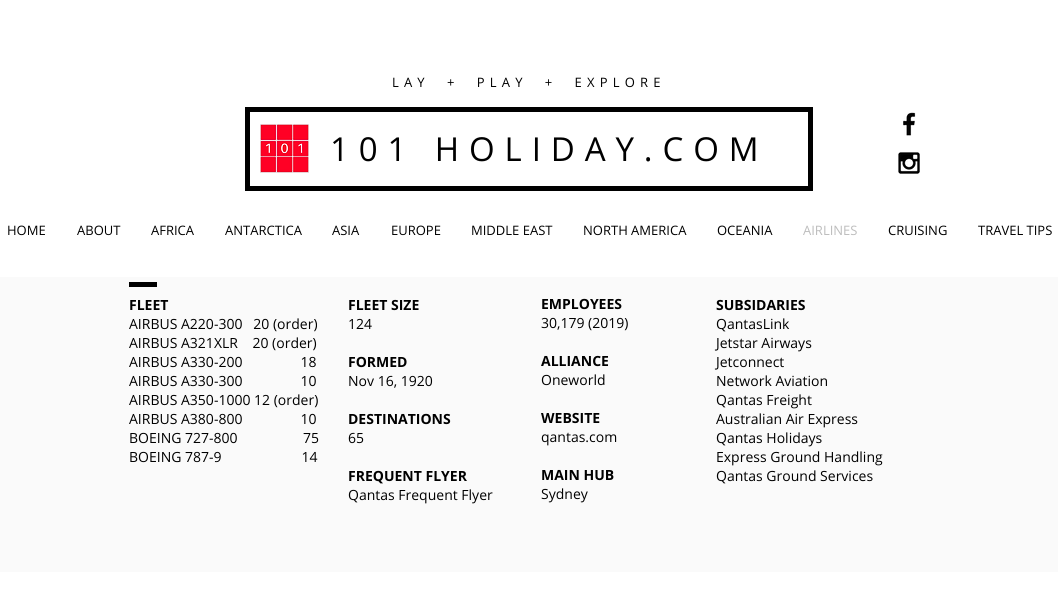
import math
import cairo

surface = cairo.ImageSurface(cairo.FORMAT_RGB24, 1058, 592)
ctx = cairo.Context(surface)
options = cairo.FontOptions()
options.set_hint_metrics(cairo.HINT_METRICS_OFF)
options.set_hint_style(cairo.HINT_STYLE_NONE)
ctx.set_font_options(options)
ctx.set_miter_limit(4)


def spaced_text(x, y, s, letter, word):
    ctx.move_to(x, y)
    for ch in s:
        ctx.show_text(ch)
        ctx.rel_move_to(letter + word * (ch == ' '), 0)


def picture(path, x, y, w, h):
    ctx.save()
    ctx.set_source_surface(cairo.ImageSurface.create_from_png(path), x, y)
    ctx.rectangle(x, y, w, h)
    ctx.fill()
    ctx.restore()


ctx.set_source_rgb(1, 1, 1)
ctx.paint()
ctx.select_font_face("Open Sans")
ctx.set_font_size(13)
ctx.set_source_rgb(0, 0, 0)
spaced_text(392, 87, "LAY  +  PLAY  +  EXPLORE", 5.2, 0)
ctx.rectangle(247.5, 109.5, 563, 79)
ctx.set_line_width(5)
ctx.stroke()
picture("img1.png", 260, 124, 49, 49)
ctx.set_font_size(33)
spaced_text(330, 161, "101 HOLIDAY.COM", 9.9, 0)
picture("img2.png", 903, 112, 13, 24)
picture("img3.png", 898, 152, 22, 22)
ctx.set_font_size(13)
ctx.move_to(7, 235)
ctx.show_text("HOME")
ctx.move_to(77, 235)
ctx.show_text("ABOUT")
ctx.move_to(151, 235)
ctx.show_text("AFRICA")
ctx.move_to(225, 235)
ctx.show_text("ANTARCTICA")
ctx.move_to(332, 235)
ctx.show_text("ASIA")
ctx.move_to(391, 235)
ctx.show_text("EUROPE")
ctx.move_to(471, 235)
ctx.show_text("MIDDLE EAST")
ctx.move_to(583, 235)
ctx.show_text("NORTH AMERICA")
ctx.move_to(717, 235)
ctx.show_text("OCEANIA")
ctx.set_source_rgb(0.741, 0.741, 0.741)
ctx.move_to(803, 235)
ctx.show_text("AIRLINES")
ctx.set_source_rgb(0, 0, 0)
ctx.move_to(888, 235)
ctx.show_text("CRUISING")
ctx.move_to(978, 235)
ctx.show_text("TRAVEL TIPS")
ctx.set_source_rgb(0.98, 0.98, 0.98)
ctx.rectangle(0, 277, 1058, 295)
ctx.fill()
ctx.set_source_rgb(0, 0, 0)
ctx.rectangle(129, 282, 28, 5)
ctx.fill()
ctx.select_font_face("Open Sans", cairo.FONT_SLANT_NORMAL, cairo.FONT_WEIGHT_BOLD)
ctx.set_font_size(14)
ctx.move_to(129, 310)
ctx.show_text("FLEET")
ctx.select_font_face("Open Sans")
ctx.move_to(129, 329)
ctx.show_text("AIRBUS A220-300   20 (order)")
ctx.move_to(129, 348)
ctx.show_text("AIRBUS A321XLR    20 (order)")
ctx.move_to(129, 367)
ctx.show_text("AIRBUS A330-200                18")
ctx.move_to(129, 386)
ctx.show_text("AIRBUS A330-300                10")
ctx.move_to(129, 405)
ctx.show_text("AIRBUS A350-1000 12 (order)")
ctx.move_to(129, 424)
ctx.show_text("AIRBUS A380-800                10")
ctx.move_to(129, 443)
ctx.show_text("BOEING 727-800                  75")
ctx.move_to(129, 462)
ctx.show_text("BOEING 787-9                      14")
ctx.select_font_face("Open Sans", cairo.FONT_SLANT_NORMAL, cairo.FONT_WEIGHT_BOLD)
ctx.move_to(348, 310)
ctx.show_text("FLEET SIZE")
ctx.select_font_face("Open Sans")
ctx.move_to(348, 329)
ctx.show_text("124")
ctx.select_font_face("Open Sans", cairo.FONT_SLANT_NORMAL, cairo.FONT_WEIGHT_BOLD)
ctx.move_to(348, 367)
ctx.show_text("FORMED")
ctx.select_font_face("Open Sans")
ctx.move_to(348, 386)
ctx.show_text("Nov 16, 1920")
ctx.select_font_face("Open Sans", cairo.FONT_SLANT_NORMAL, cairo.FONT_WEIGHT_BOLD)
ctx.move_to(348, 424)
ctx.show_text("DESTINATIONS")
ctx.select_font_face("Open Sans")
ctx.move_to(348, 443)
ctx.show_text("65")
ctx.select_font_face("Open Sans", cairo.FONT_SLANT_NORMAL, cairo.FONT_WEIGHT_BOLD)
ctx.move_to(348, 481)
ctx.show_text("FREQUENT FLYER")
ctx.select_font_face("Open Sans")
ctx.move_to(348, 500)
ctx.show_text("Qantas Frequent Flyer")
ctx.select_font_face("Open Sans", cairo.FONT_SLANT_NORMAL, cairo.FONT_WEIGHT_BOLD)
ctx.move_to(541, 309)
ctx.show_text("EMPLOYEES")
ctx.select_font_face("Open Sans")
ctx.move_to(541, 328)
ctx.show_text("30,179 (2019)")
ctx.select_font_face("Open Sans", cairo.FONT_SLANT_NORMAL, cairo.FONT_WEIGHT_BOLD)
ctx.move_to(541, 366)
ctx.show_text("ALLIANCE")
ctx.select_font_face("Open Sans")
ctx.move_to(541, 385)
ctx.show_text("Oneworld")
ctx.select_font_face("Open Sans", cairo.FONT_SLANT_NORMAL, cairo.FONT_WEIGHT_BOLD)
ctx.move_to(541, 423)
ctx.show_text("WEBSITE")
ctx.select_font_face("Open Sans")
ctx.move_to(541, 442)
ctx.show_text("qantas.com")
ctx.select_font_face("Open Sans", cairo.FONT_SLANT_NORMAL, cairo.FONT_WEIGHT_BOLD)
ctx.move_to(541, 480)
ctx.show_text("MAIN HUB")
ctx.select_font_face("Open Sans")
ctx.move_to(541, 499)
ctx.show_text("Sydney")
ctx.select_font_face("Open Sans", cairo.FONT_SLANT_NORMAL, cairo.FONT_WEIGHT_BOLD)
ctx.move_to(716, 310)
ctx.show_text("SUBSIDARIES")
ctx.select_font_face("Open Sans")
ctx.move_to(716, 329)
ctx.show_text("QantasLink")
ctx.move_to(716, 348)
ctx.show_text("Jetstar Airways")
ctx.move_to(716, 367)
ctx.show_text("Jetconnect")
ctx.move_to(716, 386)
ctx.show_text("Network Aviation")
ctx.move_to(716, 405)
ctx.show_text("Qantas Freight")
ctx.move_to(716, 424)
ctx.show_text("Australian Air Express")
ctx.move_to(716, 443)
ctx.show_text("Qantas Holidays")
ctx.move_to(716, 462)
ctx.show_text("Express Ground Handling")
ctx.move_to(716, 481)
ctx.show_text("Qantas Ground Services")
surface.write_to_png("page.png")
